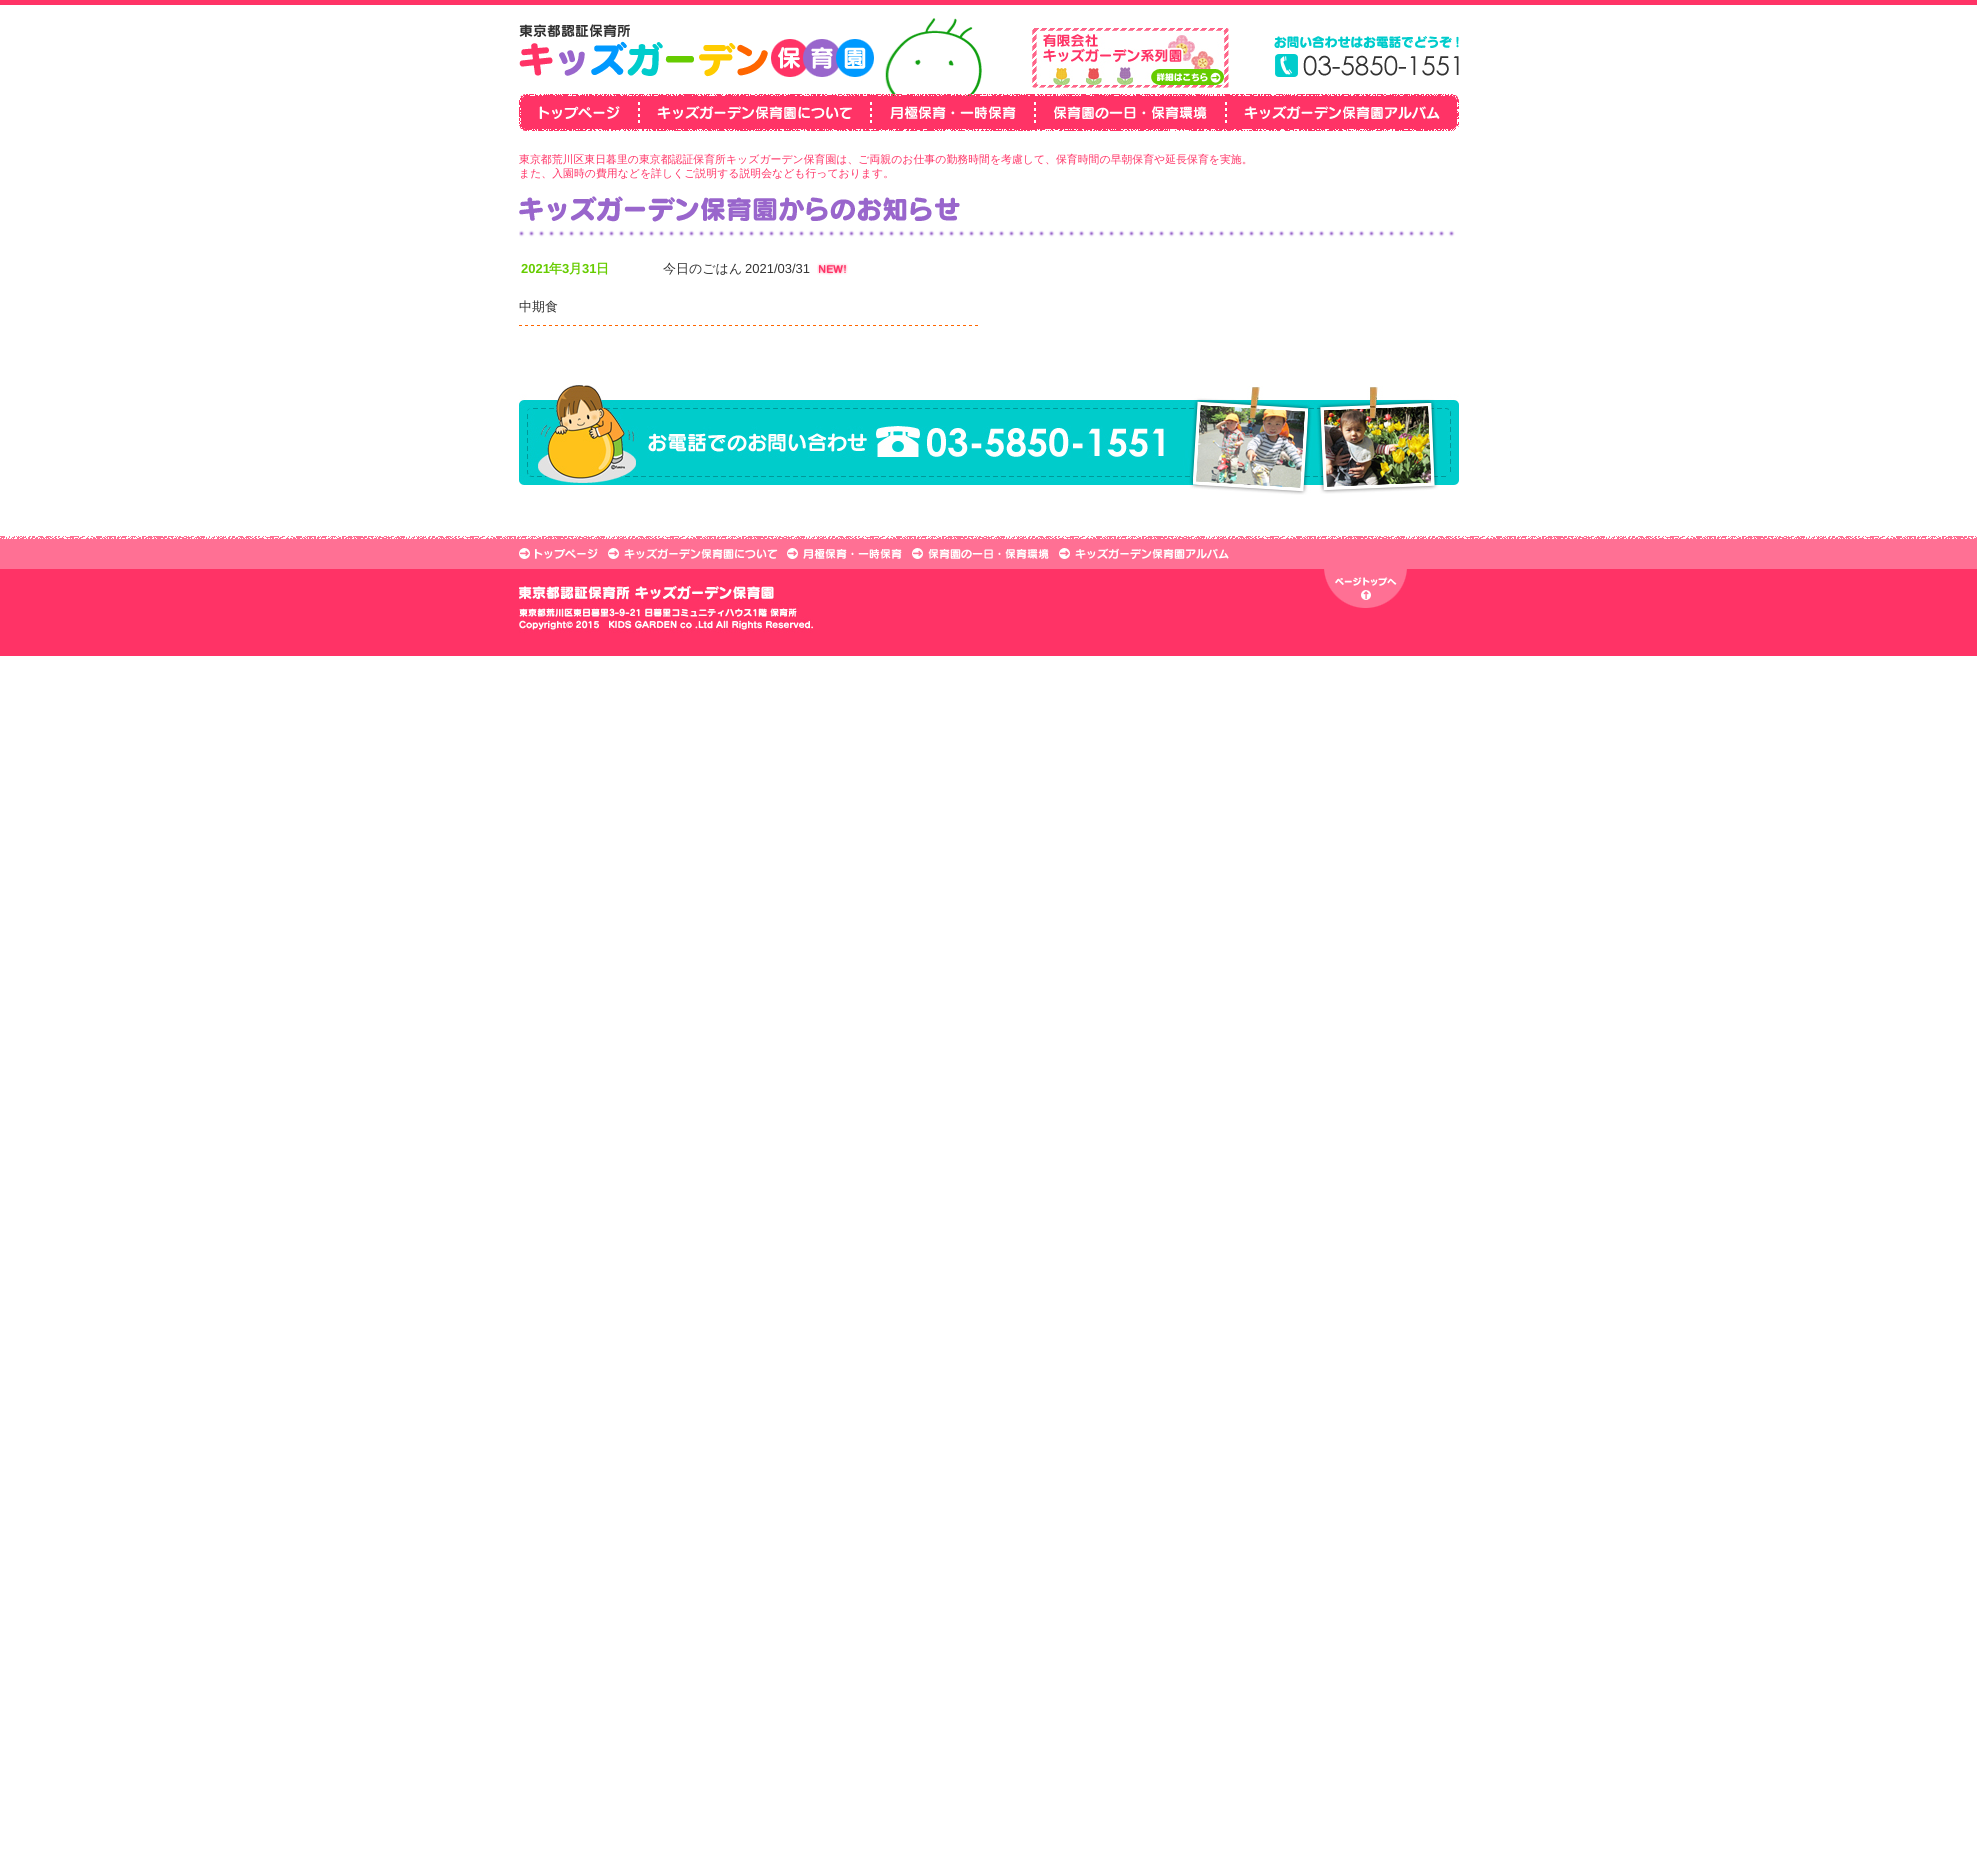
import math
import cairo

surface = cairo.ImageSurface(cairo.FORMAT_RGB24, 1977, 1854)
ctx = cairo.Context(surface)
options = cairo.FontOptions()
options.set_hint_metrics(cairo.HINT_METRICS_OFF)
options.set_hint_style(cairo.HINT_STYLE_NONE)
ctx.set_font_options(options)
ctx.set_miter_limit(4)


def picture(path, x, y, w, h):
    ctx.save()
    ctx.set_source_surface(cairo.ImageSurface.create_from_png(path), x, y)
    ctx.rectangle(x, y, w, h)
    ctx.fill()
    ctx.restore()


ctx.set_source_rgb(1, 1, 1)
ctx.paint()
ctx.set_source_rgb(1, 0.2, 0.4)
ctx.rectangle(0, 0, 1977, 5)
ctx.fill()
picture("img1.png", 885, 18, 97, 76)
picture("img2.png", 519, 24, 355, 53)
picture("img3.png", 1032, 28, 197, 60)
picture("img4.png", 1274, 36, 185, 41)
picture("img5.png", 519, 94, 121, 37)
picture("img6.png", 640, 94, 232, 37)
picture("img7.png", 872, 94, 164, 37)
picture("img8.png", 1036, 94, 191, 37)
picture("img9.png", 1227, 94, 232, 37)
ctx.select_font_face("WenQuanYi Zen Hei Medium")
ctx.set_font_size(10.88)
ctx.move_to(519, 163)
ctx.show_text("東京都荒川区東日暮里の東京都認証保育所キッズガーデン保育園は、ご両親のお仕事の勤務時間を考慮して、保育時間の早朝保育や延長保育を実施。")
ctx.move_to(519, 177)
ctx.show_text("また、入園時の費用などを詳しくご説明する説明会なども行っております。")
picture("img10.png", 519, 196, 936, 41)
ctx.select_font_face("Liberation Sans", cairo.FONT_SLANT_NORMAL, cairo.FONT_WEIGHT_BOLD)
ctx.set_font_size(13)
ctx.set_source_rgb(0.4, 0.8, 0)
ctx.move_to(521, 273)
ctx.show_text("2021")
ctx.select_font_face("WenQuanYi Zen Hei", cairo.FONT_SLANT_NORMAL, cairo.FONT_WEIGHT_BOLD)
ctx.move_to(549, 273)
ctx.show_text("年")
ctx.select_font_face("Liberation Sans", cairo.FONT_SLANT_NORMAL, cairo.FONT_WEIGHT_BOLD)
ctx.move_to(562, 273)
ctx.show_text("3")
ctx.select_font_face("WenQuanYi Zen Hei", cairo.FONT_SLANT_NORMAL, cairo.FONT_WEIGHT_BOLD)
ctx.move_to(569, 273)
ctx.show_text("月")
ctx.select_font_face("Liberation Sans", cairo.FONT_SLANT_NORMAL, cairo.FONT_WEIGHT_BOLD)
ctx.move_to(582, 273)
ctx.show_text("31")
ctx.select_font_face("WenQuanYi Zen Hei", cairo.FONT_SLANT_NORMAL, cairo.FONT_WEIGHT_BOLD)
ctx.move_to(596, 273)
ctx.show_text("日")
ctx.select_font_face("WenQuanYi Zen Hei Medium")
ctx.set_source_rgb(0.2, 0.2, 0.2)
ctx.move_to(663, 273)
ctx.show_text("今日のごはん")
ctx.select_font_face("Liberation Sans")
ctx.move_to(745, 273)
ctx.show_text("2021/03/31")
picture("img11.png", 817, 263, 31, 12)
picture("img12.png", 519, 325, 459, 1)
ctx.select_font_face("WenQuanYi Zen Hei Medium")
ctx.move_to(519, 311)
ctx.show_text("中期食")
picture("img13.png", 519, 385, 940, 110)
picture("img14.png", 0, 536, 1977, 33)
picture("img15.png", 519, 548, 79, 11)
picture("img16.png", 608, 548, 170, 11)
picture("img17.png", 787, 548, 115, 11)
picture("img18.png", 912, 548, 137, 11)
picture("img19.png", 1059, 548, 170, 11)
ctx.set_source_rgb(1, 0.2, 0.4)
ctx.rectangle(0, 569, 1977, 87)
ctx.fill()
picture("img20.png", 519, 585, 294, 48)
picture("img21.png", 1324, 569, 83, 39)
surface.write_to_png("page.png")
